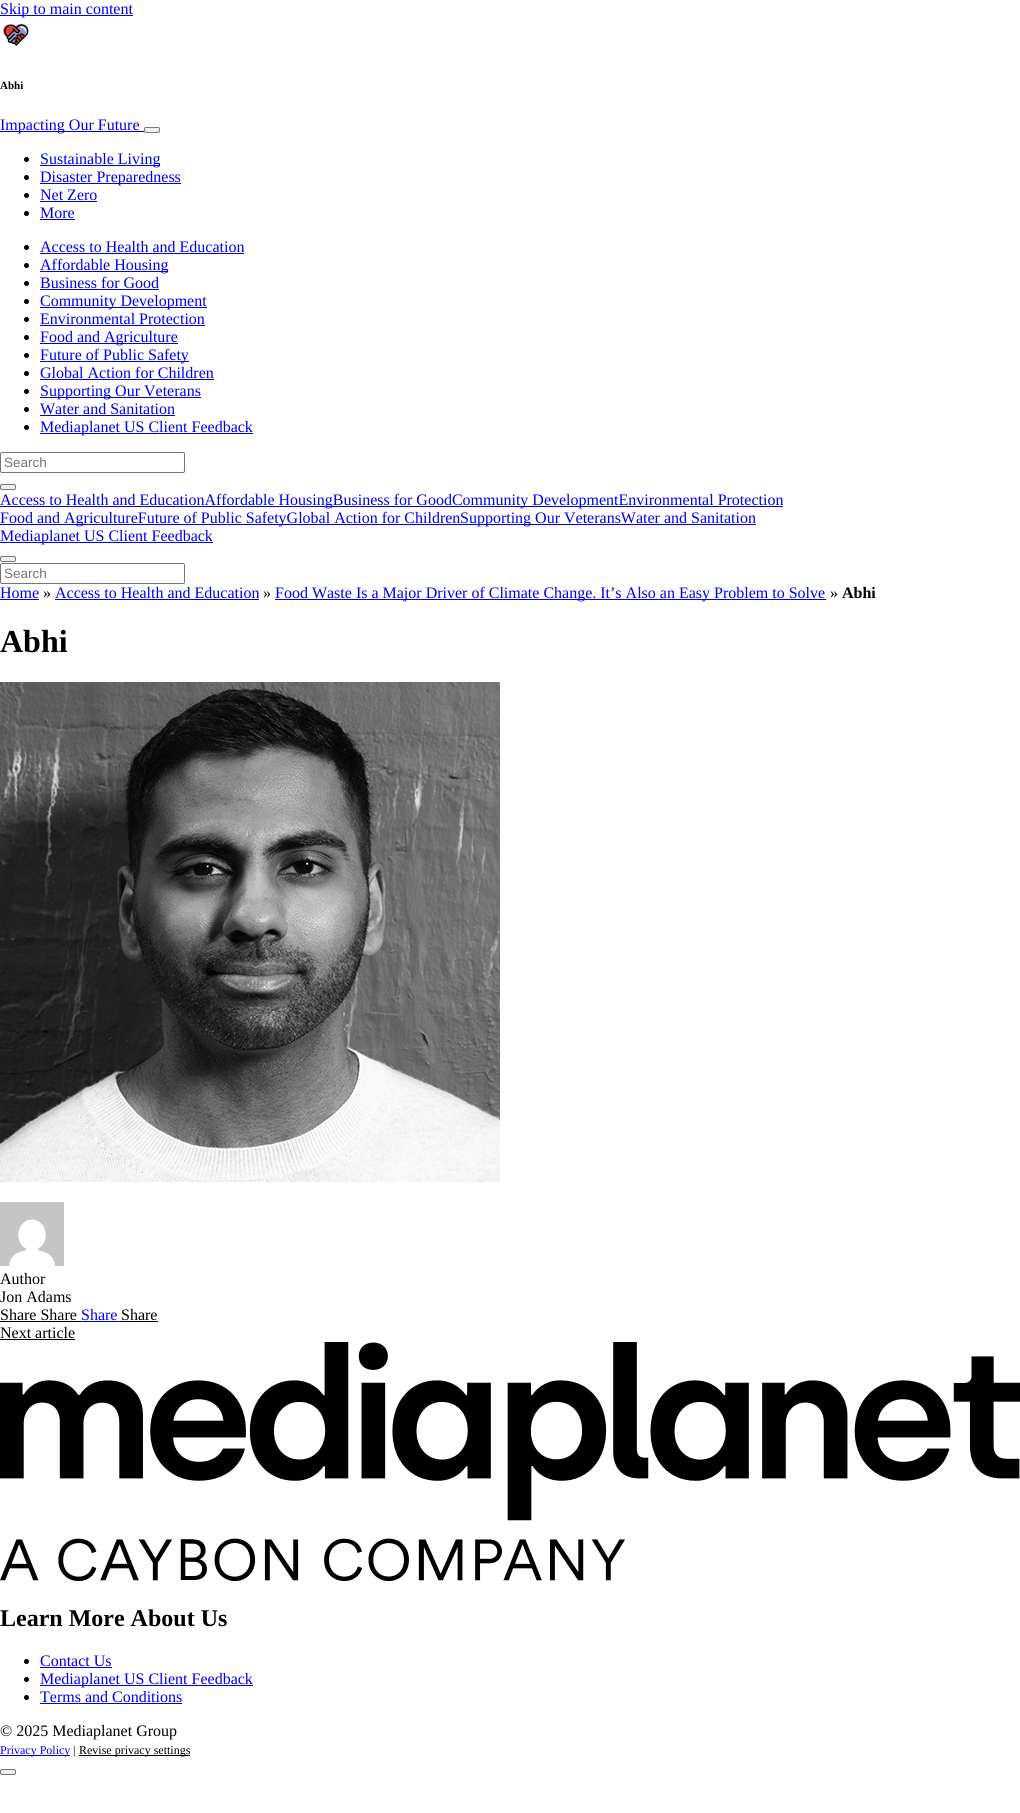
import math
import cairo

surface = cairo.ImageSurface(cairo.FORMAT_RGB24, 1020, 1813)
ctx = cairo.Context(surface)
options = cairo.FontOptions()
options.set_hint_metrics(cairo.HINT_METRICS_OFF)
options.set_hint_style(cairo.HINT_STYLE_NONE)
ctx.set_font_options(options)
ctx.set_miter_limit(4)


def round_rect(x, y, w, h, r):
    ctx.new_sub_path()
    for i, (u, v) in enumerate([(x + w - r, y + h - r), (x + r, y + h - r), (x + r, y + r), (x + w - r, y + r)]):
        ctx.arc(u, v, r, i * math.pi / 2, (i + 1) * math.pi / 2)
    ctx.close_path()


def picture(path, x, y, w, h):
    ctx.save()
    ctx.set_source_surface(cairo.ImageSurface.create_from_png(path), x, y)
    ctx.rectangle(x, y, w, h)
    ctx.fill()
    ctx.restore()


ctx.set_source_rgb(1, 1, 1)
ctx.paint()
ctx.set_source_rgb(0, 0, 0.933)
ctx.rectangle(0, 15, 133, 1)
ctx.fill()
ctx.select_font_face("Liberation Serif")
ctx.set_font_size(16)
ctx.move_to(0, 14)
ctx.show_text("Skip to main content")
picture("img1.png", 3, 23, 26, 23)
ctx.select_font_face("Liberation Serif", cairo.FONT_SLANT_NORMAL, cairo.FONT_WEIGHT_BOLD)
ctx.set_font_size(11)
ctx.set_source_rgb(0, 0, 0)
ctx.move_to(0, 89)
ctx.show_text("Abhi")
ctx.set_source_rgb(0, 0, 0.933)
ctx.rectangle(0, 131, 144, 1)
ctx.fill()
ctx.select_font_face("Liberation Serif")
ctx.set_font_size(16)
ctx.move_to(0, 130)
ctx.show_text("Impacting Our Future")
ctx.set_source_rgb(0.937, 0.937, 0.937)
round_rect(144.5, 127.5, 15, 5, 1.5)
ctx.fill_preserve()
ctx.set_source_rgb(0.463, 0.463, 0.463)
ctx.set_line_width(1)
ctx.stroke()
ctx.set_source_rgb(0, 0, 0)
ctx.arc(26.5, 159.5, 2.5, 0, 2 * math.pi)
ctx.fill()
ctx.set_source_rgb(0, 0, 0.933)
ctx.rectangle(40, 165, 120, 1)
ctx.fill()
ctx.move_to(40, 164)
ctx.show_text("Sustainable Living")
ctx.set_source_rgb(0, 0, 0)
ctx.new_path()
ctx.arc(26.5, 177.5, 2.5, 0, 2 * math.pi)
ctx.fill()
ctx.set_source_rgb(0, 0, 0.933)
ctx.rectangle(40, 183, 141, 1)
ctx.fill()
ctx.move_to(40, 182)
ctx.show_text("Disaster Preparedness")
ctx.set_source_rgb(0, 0, 0)
ctx.new_path()
ctx.arc(26.5, 195.5, 2.5, 0, 2 * math.pi)
ctx.fill()
ctx.set_source_rgb(0, 0, 0.933)
ctx.move_to(40, 200)
ctx.show_text("Net Zero")
ctx.rectangle(40, 201, 57, 1)
ctx.fill()
ctx.set_source_rgb(0, 0, 0)
ctx.arc(26.5, 213.5, 2.5, 0, 2 * math.pi)
ctx.fill()
ctx.set_source_rgb(0, 0, 0.933)
ctx.move_to(40, 218)
ctx.show_text("More")
ctx.rectangle(40, 219, 35, 1)
ctx.fill()
ctx.set_source_rgb(0, 0, 0)
ctx.arc(26.5, 247.5, 2.5, 0, 2 * math.pi)
ctx.fill()
ctx.set_source_rgb(0, 0, 0.933)
ctx.move_to(40, 252)
ctx.show_text("Access to Health and Education")
ctx.rectangle(40, 253, 204, 1)
ctx.fill()
ctx.set_source_rgb(0, 0, 0)
ctx.arc(26.5, 265.5, 2.5, 0, 2 * math.pi)
ctx.fill()
ctx.set_source_rgb(0, 0, 0.933)
ctx.rectangle(40, 271, 128, 1)
ctx.fill()
ctx.move_to(40, 270)
ctx.show_text("Affordable Housing")
ctx.set_source_rgb(0, 0, 0)
ctx.new_path()
ctx.arc(26.5, 283.5, 2.5, 0, 2 * math.pi)
ctx.fill()
ctx.set_source_rgb(0, 0, 0.933)
ctx.move_to(40, 288)
ctx.show_text("Business for Good")
ctx.rectangle(40, 289, 119, 1)
ctx.fill()
ctx.set_source_rgb(0, 0, 0)
ctx.arc(26.5, 301.5, 2.5, 0, 2 * math.pi)
ctx.fill()
ctx.set_source_rgb(0, 0, 0.933)
ctx.rectangle(40, 307, 167, 1)
ctx.fill()
ctx.move_to(40, 306)
ctx.show_text("Community Development")
ctx.set_source_rgb(0, 0, 0)
ctx.new_path()
ctx.arc(26.5, 319.5, 2.5, 0, 2 * math.pi)
ctx.fill()
ctx.set_source_rgb(0, 0, 0.933)
ctx.move_to(40, 324)
ctx.show_text("Environmental Protection")
ctx.rectangle(40, 325, 165, 1)
ctx.fill()
ctx.set_source_rgb(0, 0, 0)
ctx.arc(26.5, 337.5, 2.5, 0, 2 * math.pi)
ctx.fill()
ctx.set_source_rgb(0, 0, 0.933)
ctx.rectangle(40, 343, 138, 1)
ctx.fill()
ctx.move_to(40, 342)
ctx.show_text("Food and Agriculture")
ctx.set_source_rgb(0, 0, 0)
ctx.new_path()
ctx.arc(26.5, 355.5, 2.5, 0, 2 * math.pi)
ctx.fill()
ctx.set_source_rgb(0, 0, 0.933)
ctx.rectangle(40, 361, 149, 1)
ctx.fill()
ctx.move_to(40, 360)
ctx.show_text("Future of Public Safety")
ctx.set_source_rgb(0, 0, 0)
ctx.new_path()
ctx.arc(26.5, 373.5, 2.5, 0, 2 * math.pi)
ctx.fill()
ctx.set_source_rgb(0, 0, 0.933)
ctx.move_to(40, 378)
ctx.show_text("Global Action for Children")
ctx.rectangle(40, 379, 174, 1)
ctx.fill()
ctx.set_source_rgb(0, 0, 0)
ctx.arc(26.5, 391.5, 2.5, 0, 2 * math.pi)
ctx.fill()
ctx.set_source_rgb(0, 0, 0.933)
ctx.rectangle(40, 397, 161, 1)
ctx.fill()
ctx.move_to(40, 396)
ctx.show_text("Supporting Our Veterans")
ctx.set_source_rgb(0, 0, 0)
ctx.new_path()
ctx.arc(26.5, 409.5, 2.5, 0, 2 * math.pi)
ctx.fill()
ctx.set_source_rgb(0, 0, 0.933)
ctx.move_to(40, 414)
ctx.show_text("Water and Sanitation")
ctx.rectangle(40, 415, 135, 1)
ctx.fill()
ctx.set_source_rgb(0, 0, 0)
ctx.arc(26.5, 427.5, 2.5, 0, 2 * math.pi)
ctx.fill()
ctx.set_source_rgb(0, 0, 0.933)
ctx.rectangle(40, 433, 213, 1)
ctx.fill()
ctx.move_to(40, 432)
ctx.show_text("Mediaplanet US Client Feedback")
round_rect(0.5, 452.5, 184, 20, 1.5)
ctx.set_source_rgb(0.463, 0.463, 0.463)
ctx.stroke()
ctx.select_font_face("Liberation Sans")
ctx.set_font_size(13.5)
ctx.set_source_rgb(0.459, 0.459, 0.459)
ctx.move_to(4, 467)
ctx.show_text("Search")
ctx.set_source_rgb(0.937, 0.937, 0.937)
round_rect(0.5, 484.5, 15, 5, 1.5)
ctx.fill_preserve()
ctx.set_source_rgb(0.463, 0.463, 0.463)
ctx.stroke()
ctx.set_source_rgb(0, 0, 0.933)
ctx.rectangle(0, 506, 783, 1)
ctx.fill()
ctx.select_font_face("Liberation Serif")
ctx.set_font_size(16)
ctx.move_to(0, 505)
ctx.show_text("Access to Health and EducationAffordable HousingBusiness for GoodCommunity DevelopmentEnvironmental Protection")
ctx.rectangle(0, 524, 460, 1)
ctx.fill()
ctx.move_to(0, 523)
ctx.show_text("Food and AgricultureFuture of Public SafetyGlobal Action for Children")
ctx.rectangle(460, 524, 296, 1)
ctx.fill()
ctx.move_to(460, 523)
ctx.show_text("Supporting Our VeteransWater and Sanitation")
ctx.rectangle(0, 542, 213, 1)
ctx.fill()
ctx.move_to(0, 541)
ctx.show_text("Mediaplanet US Client Feedback")
ctx.set_source_rgb(0.937, 0.937, 0.937)
round_rect(0.5, 556.5, 15, 5, 1.5)
ctx.fill_preserve()
ctx.set_source_rgb(0.463, 0.463, 0.463)
ctx.stroke()
round_rect(0.5, 563.5, 184, 20, 1.5)
ctx.stroke()
ctx.select_font_face("Liberation Sans")
ctx.set_font_size(13.5)
ctx.set_source_rgb(0.459, 0.459, 0.459)
ctx.move_to(4, 578)
ctx.show_text("Search")
ctx.select_font_face("Liberation Serif")
ctx.set_font_size(16)
ctx.set_source_rgb(0, 0, 0.933)
ctx.move_to(0, 598)
ctx.show_text("Home")
ctx.rectangle(0, 599, 39, 1)
ctx.fill()
ctx.set_source_rgb(0, 0, 0)
ctx.move_to(43, 598)
ctx.show_text("»")
ctx.set_source_rgb(0, 0, 0.933)
ctx.rectangle(55, 599, 204, 1)
ctx.fill()
ctx.move_to(55, 598)
ctx.show_text("Access to Health and Education")
ctx.set_source_rgb(0, 0, 0)
ctx.move_to(263, 598)
ctx.show_text("»")
ctx.set_source_rgb(0, 0, 0.933)
ctx.rectangle(275, 599, 551, 1)
ctx.fill()
ctx.move_to(275, 598)
ctx.show_text("Food Waste Is a Major Driver of Climate Change. It’s Also an Easy Problem to Solve")
ctx.set_source_rgb(0, 0, 0)
ctx.move_to(830, 598)
ctx.show_text("»")
ctx.select_font_face("Liberation Serif", cairo.FONT_SLANT_NORMAL, cairo.FONT_WEIGHT_BOLD)
ctx.move_to(842, 598)
ctx.show_text("Abhi")
ctx.set_font_size(32)
ctx.move_to(0, 652)
ctx.show_text("Abhi")
picture("img2.png", 0, 682, 500, 500)
picture("img3.png", 0, 1202, 64, 64)
ctx.select_font_face("Liberation Serif")
ctx.set_font_size(16)
ctx.move_to(0, 1284)
ctx.show_text("Author")
ctx.move_to(0, 1302)
ctx.show_text("Jon Adams")
ctx.move_to(0, 1320)
ctx.show_text("Share Share")
ctx.rectangle(0, 1321, 81, 1)
ctx.fill()
ctx.set_source_rgb(0, 0, 0.933)
ctx.move_to(81, 1320)
ctx.show_text("Share")
ctx.rectangle(81, 1321, 40, 1)
ctx.fill()
ctx.set_source_rgb(0, 0, 0)
ctx.move_to(121, 1320)
ctx.show_text("Share")
ctx.rectangle(121, 1321, 37, 1)
ctx.fill()
ctx.move_to(0, 1338)
ctx.show_text("Next article")
ctx.rectangle(0, 1339, 75, 1)
ctx.fill()
picture("img4.png", 0, 1342, 1020, 239)
ctx.select_font_face("Liberation Serif", cairo.FONT_SLANT_NORMAL, cairo.FONT_WEIGHT_BOLD)
ctx.set_font_size(24)
ctx.move_to(0, 1626)
ctx.show_text("Learn More About Us")
ctx.new_path()
ctx.arc(26.5, 1661.5, 2.5, 0, 2 * math.pi)
ctx.fill()
ctx.select_font_face("Liberation Serif")
ctx.set_font_size(16)
ctx.set_source_rgb(0, 0, 0.933)
ctx.move_to(40, 1666)
ctx.show_text("Contact Us")
ctx.rectangle(40, 1667, 72, 1)
ctx.fill()
ctx.set_source_rgb(0, 0, 0)
ctx.arc(26.5, 1679.5, 2.5, 0, 2 * math.pi)
ctx.fill()
ctx.set_source_rgb(0, 0, 0.933)
ctx.rectangle(40, 1685, 213, 1)
ctx.fill()
ctx.move_to(40, 1684)
ctx.show_text("Mediaplanet US Client Feedback")
ctx.set_source_rgb(0, 0, 0)
ctx.new_path()
ctx.arc(26.5, 1697.5, 2.5, 0, 2 * math.pi)
ctx.fill()
ctx.set_source_rgb(0, 0, 0.933)
ctx.move_to(40, 1702)
ctx.show_text("Terms and Conditions")
ctx.rectangle(40, 1703, 142, 1)
ctx.fill()
ctx.set_source_rgb(0, 0, 0)
ctx.move_to(0, 1736)
ctx.show_text("© 2025 Mediaplanet Group")
ctx.set_source_rgb(0, 0, 0.933)
ctx.rectangle(0, 1755, 70, 1)
ctx.fill()
ctx.set_font_size(12)
ctx.move_to(0, 1754)
ctx.show_text("Privacy Policy")
ctx.set_source_rgb(0, 0, 0)
ctx.move_to(73, 1754)
ctx.show_text("|")
ctx.rectangle(79, 1755, 111, 1)
ctx.fill()
ctx.move_to(79, 1754)
ctx.show_text("Revise privacy settings")
ctx.set_source_rgb(0.937, 0.937, 0.937)
round_rect(0.5, 1769.5, 15, 5, 1.5)
ctx.fill_preserve()
ctx.set_source_rgb(0.463, 0.463, 0.463)
ctx.stroke()
surface.write_to_png("page.png")
